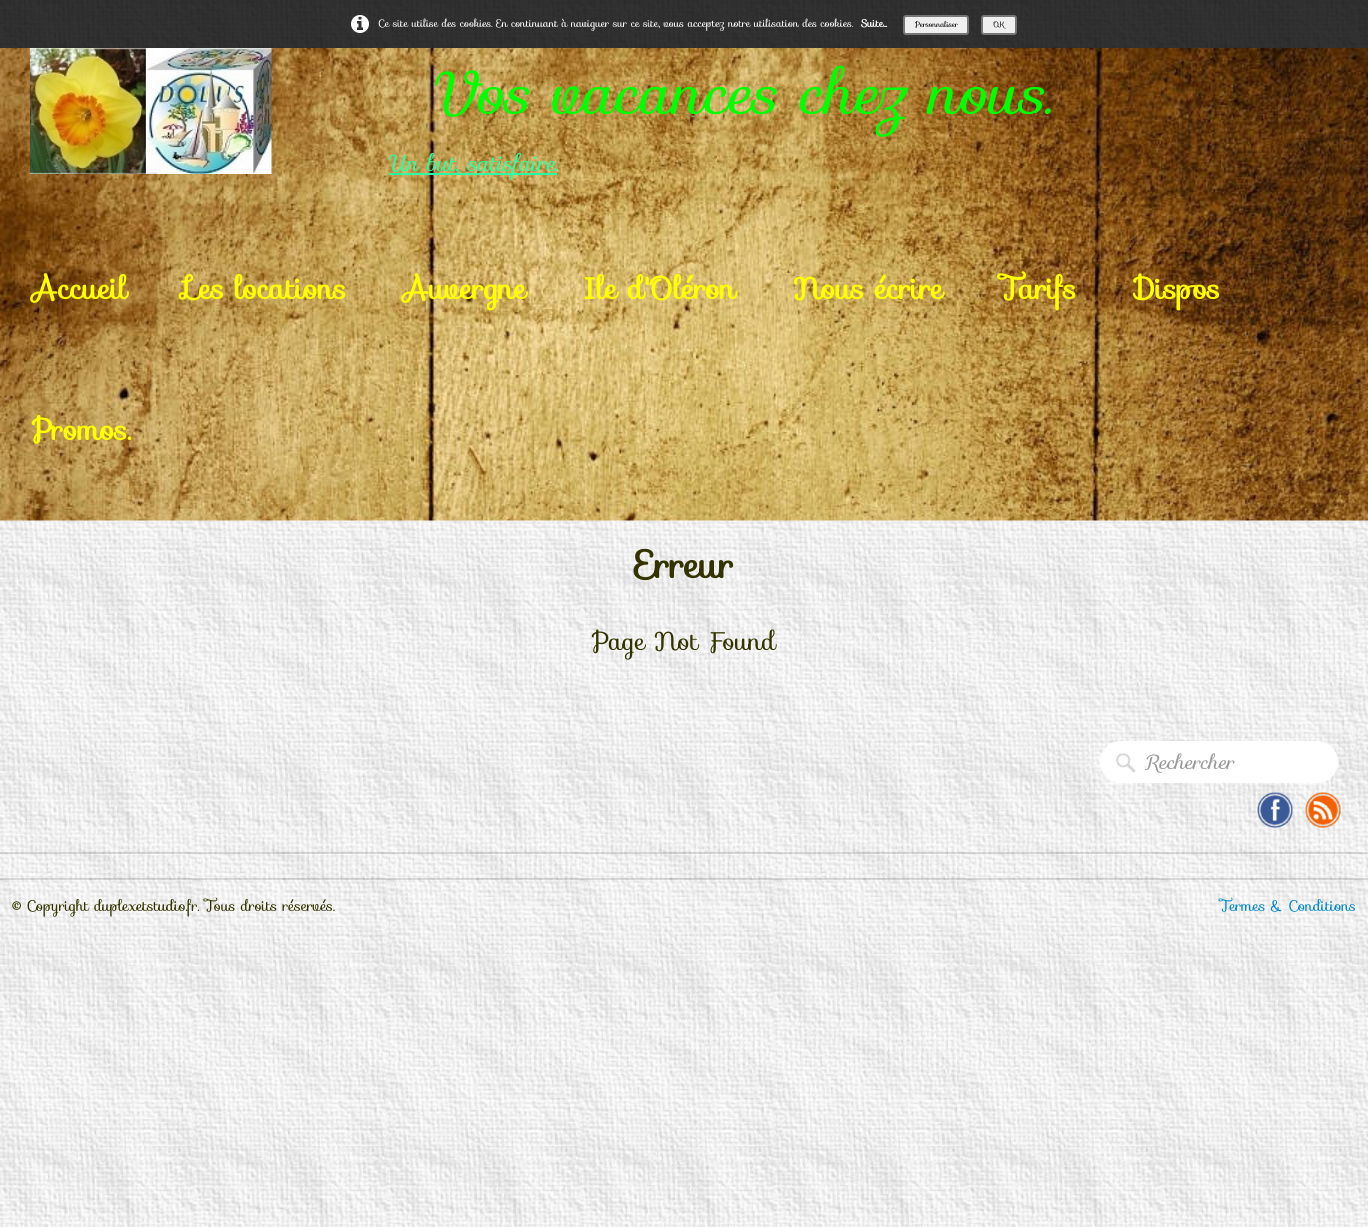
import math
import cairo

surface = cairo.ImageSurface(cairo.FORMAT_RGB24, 1368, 1227)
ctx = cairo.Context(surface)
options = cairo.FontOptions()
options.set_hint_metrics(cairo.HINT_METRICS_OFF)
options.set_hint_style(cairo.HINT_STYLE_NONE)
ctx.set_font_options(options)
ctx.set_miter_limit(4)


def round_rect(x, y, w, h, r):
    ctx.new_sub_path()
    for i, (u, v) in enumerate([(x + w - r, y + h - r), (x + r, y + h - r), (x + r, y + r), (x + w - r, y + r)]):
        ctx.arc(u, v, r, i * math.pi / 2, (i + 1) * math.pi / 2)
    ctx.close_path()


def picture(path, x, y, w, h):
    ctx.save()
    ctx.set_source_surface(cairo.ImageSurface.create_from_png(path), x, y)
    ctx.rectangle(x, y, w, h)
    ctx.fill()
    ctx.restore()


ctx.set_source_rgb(1, 1, 1)
ctx.paint()
picture("img1.png", 0, 0, 1368, 1227)
ctx.set_source_rgba(0, 0, 0, 0.8)
ctx.rectangle(0, 0, 1368, 48)
ctx.fill()
picture("img2.png", 351, 15, 18, 18)
ctx.select_font_face("Sofia")
ctx.set_font_size(10.5)
ctx.set_source_rgb(1, 1, 1)
ctx.move_to(378, 27)
ctx.show_text("Ce site utilise des cookies. En continuant à naviguer sur ce site, vous acceptez notre utilisation des cookies.")
ctx.select_font_face("Sofia", cairo.FONT_SLANT_NORMAL, cairo.FONT_WEIGHT_BOLD)
ctx.move_to(861, 27)
ctx.show_text("Suite...")
ctx.set_source_rgb(0.937, 0.937, 0.937)
round_rect(904, 16, 64, 18, 2)
ctx.fill_preserve()
ctx.set_source_rgb(0.463, 0.463, 0.463)
ctx.stroke()
ctx.select_font_face("Sofia")
ctx.set_font_size(7.5)
ctx.set_source_rgb(0, 0, 0)
ctx.move_to(915, 27)
ctx.show_text("Personnaliser")
ctx.set_source_rgb(0.937, 0.937, 0.937)
round_rect(982, 16, 34, 18, 2)
ctx.fill_preserve()
ctx.set_source_rgb(0.463, 0.463, 0.463)
ctx.stroke()
ctx.set_source_rgb(0, 0, 0)
ctx.move_to(993, 27)
ctx.show_text("OK")
picture("img3.png", 0, 48, 1368, 473)
picture("img4.png", 30, 48, 242, 126)
ctx.select_font_face("Sofia", cairo.FONT_SLANT_ITALIC)
ctx.set_font_size(60)
ctx.set_source_rgb(0, 1, 0)
ctx.move_to(426, 114)
ctx.show_text("Vos vacances chez nous.")
ctx.set_source_rgb(0.161, 1, 0.635)
ctx.rectangle(389, 173, 168, 2)
ctx.fill()
ctx.set_font_size(22.5)
ctx.move_to(389, 171)
ctx.show_text("Un but, satisfaire.")
ctx.select_font_face("Sofia", cairo.FONT_SLANT_NORMAL, cairo.FONT_WEIGHT_BOLD)
ctx.set_font_size(30)
ctx.set_source_rgb(1, 1, 0)
ctx.move_to(32, 299)
ctx.show_text("Accueil")
ctx.move_to(184, 299)
ctx.show_text("Les locations")
ctx.move_to(403, 299)
ctx.show_text("Auvergne")
ctx.move_to(583, 299)
ctx.show_text("Ile d'Oléron")
ctx.move_to(793, 299)
ctx.show_text("Nous écrire")
ctx.move_to(1000, 299)
ctx.show_text("Tarifs")
ctx.move_to(1134, 299)
ctx.show_text("Dispos")
ctx.move_to(32, 440)
ctx.show_text("Promos.")
ctx.set_font_size(37.5)
ctx.set_source_rgb(0.2, 0.2, 0)
ctx.move_to(635, 578)
ctx.show_text("Erreur")
ctx.select_font_face("Sofia")
ctx.set_font_size(25.5)
ctx.move_to(592, 650)
ctx.show_text("Page Not Found")
ctx.set_source_rgb(1, 1, 1)
round_rect(1100, 741, 238, 42, 21)
ctx.fill()
picture("img5.png", 1116, 753, 20, 20)
ctx.save()
ctx.rectangle(1145, 747, 187, 32)
ctx.clip()
ctx.select_font_face("Sofia", cairo.FONT_SLANT_ITALIC)
ctx.set_font_size(19.5)
ctx.set_source_rgb(0.6, 0.6, 0.6)
ctx.move_to(1145, 769)
ctx.show_text("Rechercher")
ctx.restore()
picture("img6.png", 1257, 792, 36, 36)
picture("img7.png", 1305, 792, 36, 36)
ctx.set_source_rgba(0, 0, 0, 0.13)
ctx.rectangle(0, 852, 1368, 2)
ctx.fill()
ctx.rectangle(0, 878, 1368, 2)
ctx.fill()
ctx.set_font_size(15)
ctx.set_source_rgb(0.2, 0.2, 0)
ctx.move_to(12, 911)
ctx.show_text("© Copyright duplexetstudio.fr. Tous droits réservés.")
ctx.set_source_rgb(0, 0.533, 0.8)
ctx.move_to(1220, 911)
ctx.show_text("Termes & Conditions")
surface.write_to_png("page.png")
